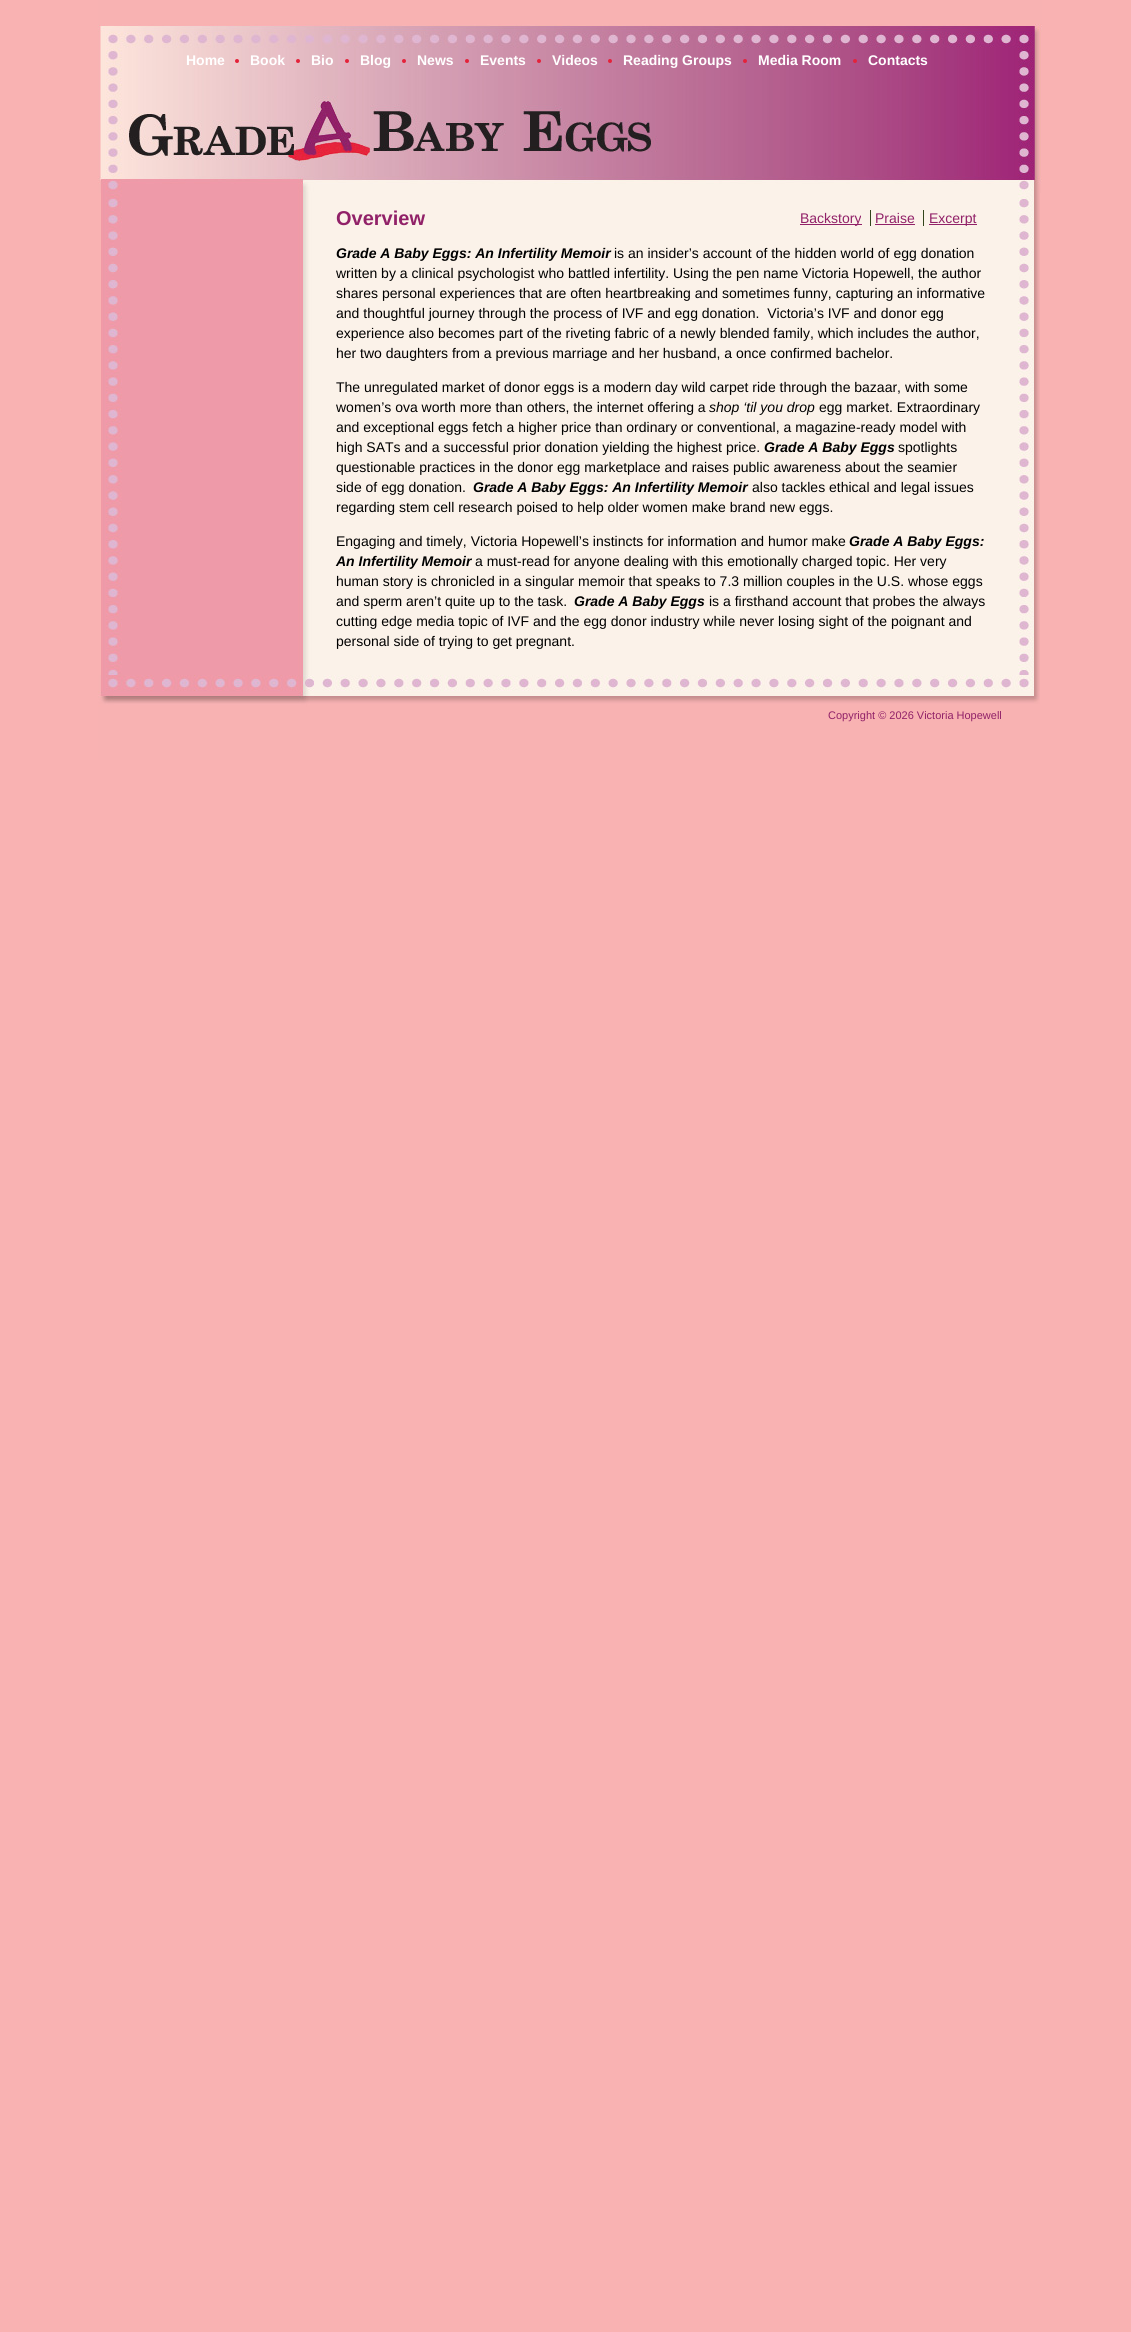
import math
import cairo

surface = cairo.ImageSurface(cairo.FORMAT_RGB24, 1131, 2332)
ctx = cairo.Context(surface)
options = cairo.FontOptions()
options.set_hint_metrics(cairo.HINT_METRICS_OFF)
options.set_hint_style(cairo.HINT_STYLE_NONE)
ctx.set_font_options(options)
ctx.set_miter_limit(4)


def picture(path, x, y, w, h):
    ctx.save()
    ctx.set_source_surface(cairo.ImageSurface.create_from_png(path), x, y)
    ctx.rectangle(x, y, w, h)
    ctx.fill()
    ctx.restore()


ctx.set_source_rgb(0.973, 0.698, 0.698)
ctx.paint()
picture("img1.png", 101, 193, 939, 482)
picture("img2.png", 98, 0, 944, 193)
ctx.select_font_face("Liberation Sans", cairo.FONT_SLANT_NORMAL, cairo.FONT_WEIGHT_BOLD)
ctx.set_font_size(14)
ctx.set_source_rgb(1, 1, 1)
ctx.move_to(186, 65)
ctx.show_text("Home")
ctx.set_source_rgb(0.894, 0.133, 0.227)
ctx.new_path()
ctx.arc(237, 61, 2, 0, 2 * math.pi)
ctx.fill()
ctx.set_source_rgb(1, 1, 1)
ctx.move_to(250, 65)
ctx.show_text("Book")
ctx.set_source_rgb(0.894, 0.133, 0.227)
ctx.new_path()
ctx.arc(298, 61, 2, 0, 2 * math.pi)
ctx.fill()
ctx.set_source_rgb(1, 1, 1)
ctx.move_to(311, 65)
ctx.show_text("Bio")
ctx.set_source_rgb(0.894, 0.133, 0.227)
ctx.new_path()
ctx.arc(347, 61, 2, 0, 2 * math.pi)
ctx.fill()
ctx.set_source_rgb(1, 1, 1)
ctx.move_to(360, 65)
ctx.show_text("Blog")
ctx.set_source_rgb(0.894, 0.133, 0.227)
ctx.new_path()
ctx.arc(404, 61, 2, 0, 2 * math.pi)
ctx.fill()
ctx.set_source_rgb(1, 1, 1)
ctx.move_to(417, 65)
ctx.show_text("News")
ctx.set_source_rgb(0.894, 0.133, 0.227)
ctx.new_path()
ctx.arc(467, 61, 2, 0, 2 * math.pi)
ctx.fill()
ctx.set_source_rgb(1, 1, 1)
ctx.move_to(480, 65)
ctx.show_text("Events")
ctx.set_source_rgb(0.894, 0.133, 0.227)
ctx.new_path()
ctx.arc(539, 61, 2, 0, 2 * math.pi)
ctx.fill()
ctx.set_source_rgb(1, 1, 1)
ctx.move_to(552, 65)
ctx.show_text("Videos")
ctx.set_source_rgb(0.894, 0.133, 0.227)
ctx.new_path()
ctx.arc(610, 61, 2, 0, 2 * math.pi)
ctx.fill()
ctx.set_source_rgb(1, 1, 1)
ctx.move_to(623, 65)
ctx.show_text("Reading Groups")
ctx.set_source_rgb(0.894, 0.133, 0.227)
ctx.new_path()
ctx.arc(745, 61, 2, 0, 2 * math.pi)
ctx.fill()
ctx.set_source_rgb(1, 1, 1)
ctx.move_to(758, 65)
ctx.show_text("Media Room")
ctx.set_source_rgb(0.894, 0.133, 0.227)
ctx.new_path()
ctx.arc(855, 61, 2, 0, 2 * math.pi)
ctx.fill()
ctx.set_source_rgb(1, 1, 1)
ctx.move_to(868, 65)
ctx.show_text("Contacts")
ctx.set_font_size(20)
ctx.set_source_rgb(0.569, 0.129, 0.408)
ctx.move_to(336, 225)
ctx.show_text("Overview")
ctx.rectangle(800, 224, 62, 1)
ctx.fill()
ctx.select_font_face("Liberation Sans")
ctx.set_font_size(14)
ctx.move_to(800, 223)
ctx.show_text("Backstory")
ctx.set_source_rgb(0.196, 0.271, 0.106)
ctx.rectangle(870, 210, 1, 16)
ctx.fill()
ctx.set_source_rgb(0.569, 0.129, 0.408)
ctx.move_to(875, 223)
ctx.show_text("Praise")
ctx.set_source_rgb(0.196, 0.271, 0.106)
ctx.rectangle(923, 210, 1, 16)
ctx.fill()
ctx.set_source_rgb(0.569, 0.129, 0.408)
ctx.rectangle(875, 224, 40, 1)
ctx.fill()
ctx.rectangle(929, 224, 48, 1)
ctx.fill()
ctx.move_to(929, 223)
ctx.show_text("Excerpt")
ctx.select_font_face("Liberation Sans", cairo.FONT_SLANT_ITALIC, cairo.FONT_WEIGHT_BOLD)
ctx.set_source_rgb(0, 0, 0)
ctx.move_to(336, 258)
ctx.show_text("Grade A Baby Eggs: An Infertility Memoir")
ctx.select_font_face("Liberation Sans")
ctx.move_to(614, 258)
ctx.show_text("is an insider’s account of the hidden world of egg donation")
ctx.move_to(336, 278)
ctx.show_text("written by a clinical psychologist who battled infertility. Using the pen name Victoria Hopewell, the author")
ctx.move_to(336, 298)
ctx.show_text("shares personal experiences that are often heartbreaking and sometimes funny, capturing an informative")
ctx.move_to(336, 318)
ctx.show_text("and thoughtful journey through the process of IVF and egg donation.  Victoria’s IVF and donor egg")
ctx.move_to(336, 338)
ctx.show_text("experience also becomes part of the riveting fabric of a newly blended family, which includes the author,")
ctx.move_to(336, 358)
ctx.show_text("her two daughters from a previous marriage and her husband, a once confirmed bachelor.")
ctx.move_to(336, 392)
ctx.show_text("The unregulated market of donor eggs is a modern day wild carpet ride through the bazaar, with some")
ctx.move_to(336, 412)
ctx.show_text("women’s ova worth more than others, the internet offering a")
ctx.select_font_face("Liberation Sans", cairo.FONT_SLANT_ITALIC)
ctx.move_to(709, 412)
ctx.show_text("shop ‘til you drop")
ctx.select_font_face("Liberation Sans")
ctx.move_to(819, 412)
ctx.show_text("egg market. Extraordinary")
ctx.move_to(336, 432)
ctx.show_text("and exceptional eggs fetch a higher price than ordinary or conventional, a magazine-ready model with")
ctx.move_to(336, 452)
ctx.show_text("high SATs and a successful prior donation yielding the highest price.")
ctx.select_font_face("Liberation Sans", cairo.FONT_SLANT_ITALIC, cairo.FONT_WEIGHT_BOLD)
ctx.move_to(764, 452)
ctx.show_text("Grade A Baby Eggs")
ctx.select_font_face("Liberation Sans")
ctx.move_to(898, 452)
ctx.show_text("spotlights")
ctx.move_to(336, 472)
ctx.show_text("questionable practices in the donor egg marketplace and raises public awareness about the seamier")
ctx.move_to(336, 492)
ctx.show_text("side of egg donation.")
ctx.select_font_face("Liberation Sans", cairo.FONT_SLANT_ITALIC, cairo.FONT_WEIGHT_BOLD)
ctx.move_to(473, 492)
ctx.show_text("Grade A Baby Eggs: An Infertility Memoir")
ctx.select_font_face("Liberation Sans")
ctx.move_to(752, 492)
ctx.show_text("also tackles ethical and legal issues")
ctx.move_to(336, 512)
ctx.show_text("regarding stem cell research poised to help older women make brand new eggs.")
ctx.move_to(336, 546)
ctx.show_text("Engaging and timely, Victoria Hopewell’s instincts for information and humor make")
ctx.select_font_face("Liberation Sans", cairo.FONT_SLANT_ITALIC, cairo.FONT_WEIGHT_BOLD)
ctx.move_to(849, 546)
ctx.show_text("Grade A Baby Eggs:")
ctx.move_to(336, 566)
ctx.show_text("An Infertility Memoir")
ctx.select_font_face("Liberation Sans")
ctx.move_to(475, 566)
ctx.show_text("a must-read for anyone dealing with this emotionally charged topic. Her very")
ctx.move_to(336, 586)
ctx.show_text("human story is chronicled in a singular memoir that speaks to 7.3 million couples in the U.S. whose eggs")
ctx.move_to(336, 606)
ctx.show_text("and sperm aren’t quite up to the task.")
ctx.select_font_face("Liberation Sans", cairo.FONT_SLANT_ITALIC, cairo.FONT_WEIGHT_BOLD)
ctx.move_to(574, 606)
ctx.show_text("Grade A Baby Eggs")
ctx.select_font_face("Liberation Sans")
ctx.move_to(709, 606)
ctx.show_text("is a firsthand account that probes the always")
ctx.move_to(336, 626)
ctx.show_text("cutting edge media topic of IVF and the egg donor industry while never losing sight of the poignant and")
ctx.move_to(336, 646)
ctx.show_text("personal side of trying to get pregnant.")
picture("img3.png", 98, 675, 942, 85)
ctx.set_font_size(11)
ctx.set_source_rgb(0.569, 0.129, 0.408)
ctx.move_to(828, 719)
ctx.show_text("Copyright © 2026 Victoria Hopewell")
surface.write_to_png("page.png")
